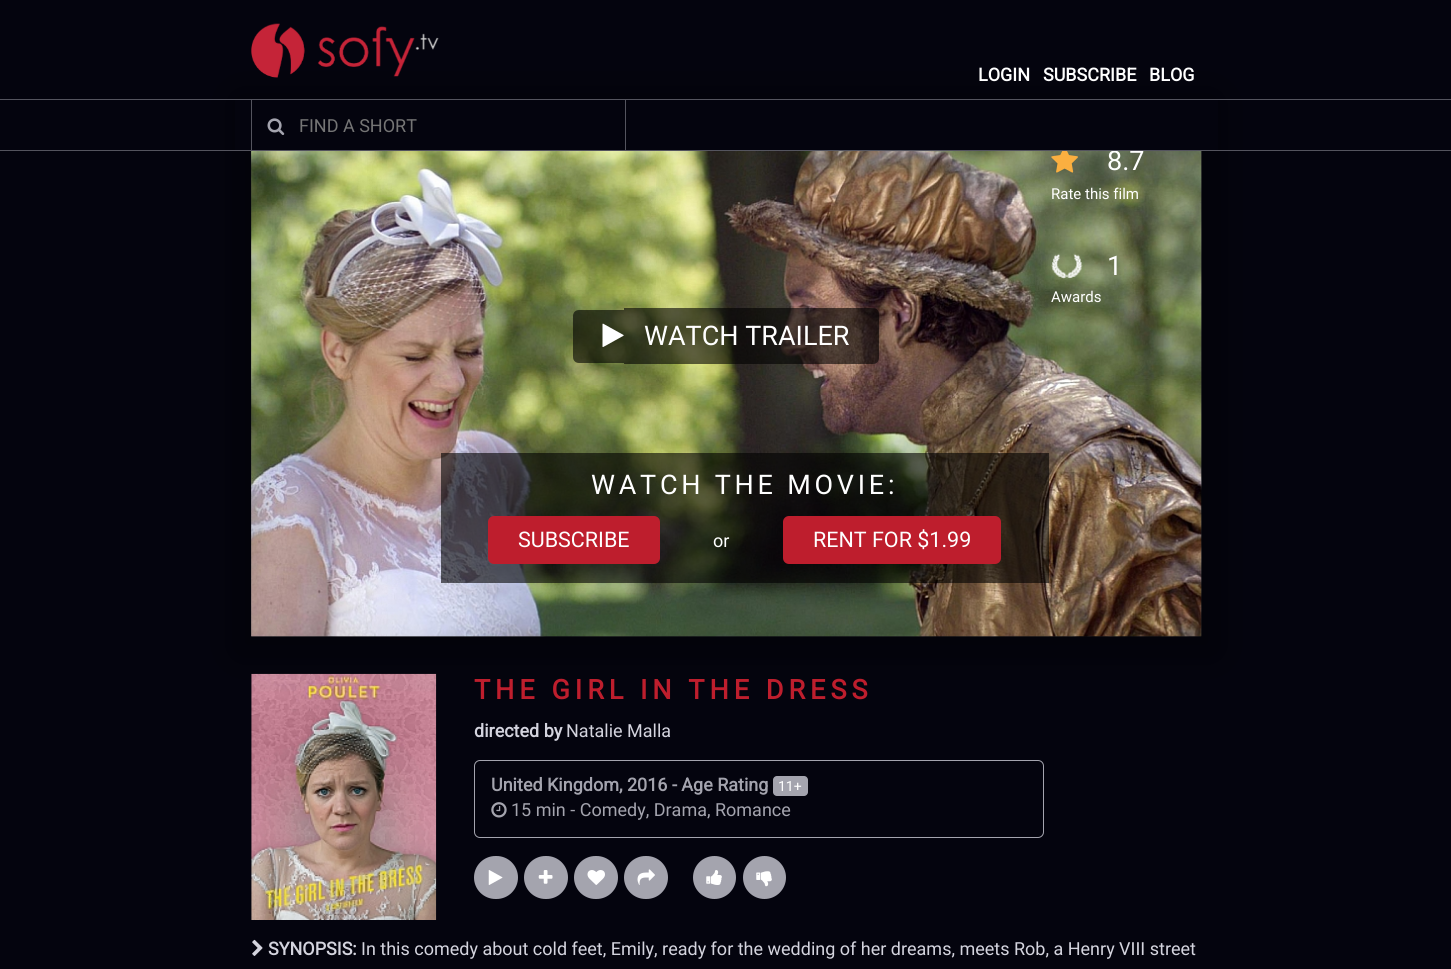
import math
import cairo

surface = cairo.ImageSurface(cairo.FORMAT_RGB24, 1451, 969)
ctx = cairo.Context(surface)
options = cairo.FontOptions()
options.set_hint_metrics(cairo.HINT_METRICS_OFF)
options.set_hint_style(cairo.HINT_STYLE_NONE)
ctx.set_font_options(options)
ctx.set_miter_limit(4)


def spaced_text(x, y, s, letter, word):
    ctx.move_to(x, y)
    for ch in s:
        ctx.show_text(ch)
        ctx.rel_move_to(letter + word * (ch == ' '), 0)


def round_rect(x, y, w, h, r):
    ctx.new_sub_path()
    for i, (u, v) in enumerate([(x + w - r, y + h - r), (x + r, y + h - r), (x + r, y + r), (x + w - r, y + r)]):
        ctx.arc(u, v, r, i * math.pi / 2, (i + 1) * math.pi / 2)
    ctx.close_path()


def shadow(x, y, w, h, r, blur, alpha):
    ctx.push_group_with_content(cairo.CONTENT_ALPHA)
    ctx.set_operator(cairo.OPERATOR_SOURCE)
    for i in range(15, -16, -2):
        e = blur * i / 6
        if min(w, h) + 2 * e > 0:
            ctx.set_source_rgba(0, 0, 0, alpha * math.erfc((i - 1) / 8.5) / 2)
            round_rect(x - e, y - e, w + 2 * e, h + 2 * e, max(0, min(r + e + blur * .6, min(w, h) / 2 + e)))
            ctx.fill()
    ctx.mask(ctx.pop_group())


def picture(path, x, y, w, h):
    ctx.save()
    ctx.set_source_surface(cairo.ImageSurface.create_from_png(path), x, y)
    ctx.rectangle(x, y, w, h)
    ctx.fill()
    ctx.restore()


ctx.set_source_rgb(0.016, 0.016, 0.055)
ctx.paint()
picture("img3.png", 251, 151, 951, 486)
ctx.set_source_rgb(0, 0, 0)
shadow(235, 96, 983, 559, 0, 21, 0.37)
picture("img1.png", 251, 23, 188, 55)
ctx.select_font_face("Roboto", cairo.FONT_SLANT_NORMAL, cairo.FONT_WEIGHT_BOLD)
ctx.set_font_size(18)
ctx.set_source_rgb(1, 1, 1)
ctx.move_to(978, 81)
ctx.show_text("LOGIN")
ctx.move_to(1043, 81)
ctx.show_text("SUBSCRIBE")
ctx.move_to(1149, 81)
ctx.show_text("BLOG")
ctx.set_source_rgb(0.016, 0.016, 0.055)
ctx.rectangle(235, 100, 983, 50)
ctx.fill()
ctx.set_source_rgb(0.329, 0.329, 0.369)
ctx.rectangle(0, 99, 1451, 1)
ctx.fill()
picture("img6.png", 251, 151, 951, 486)
ctx.select_font_face("Roboto")
ctx.set_font_size(27)
ctx.set_source_rgb(1, 1, 1)
ctx.move_to(1107, 170)
ctx.show_text("8.7")
ctx.set_source_rgb(0.329, 0.329, 0.369)
ctx.rectangle(0, 150, 1451, 1)
ctx.fill()
picture("img2.png", 267, 118, 18, 17)
ctx.rectangle(625, 100, 1, 50)
ctx.fill()
ctx.rectangle(251, 100, 1, 50)
ctx.fill()
ctx.set_font_size(18)
ctx.set_source_rgb(0.459, 0.459, 0.459)
ctx.move_to(299, 132)
ctx.show_text("FIND A SHORT")
picture("img4.png", 1051, 151, 27, 22)
ctx.set_font_size(15)
ctx.set_source_rgb(1, 1, 1)
ctx.move_to(1051, 199)
ctx.show_text("Rate this film")
picture("img5.png", 1051, 253, 32, 26)
ctx.set_font_size(27)
ctx.move_to(1107, 275)
ctx.show_text("1")
ctx.set_font_size(15)
ctx.move_to(1051, 302)
ctx.show_text("Awards")
ctx.set_source_rgba(0, 0, 0, 0.6)
ctx.new_path()
ctx.move_to(579, 310)
ctx.line_to(624, 310)
ctx.line_to(624, 363)
ctx.line_to(579, 363)
ctx.curve_to(575.5, 363, 573, 360.5, 573, 357)
ctx.line_to(573, 316)
ctx.curve_to(573, 312.5, 575.5, 310, 579, 310)
ctx.close_path()
ctx.fill()
ctx.new_path()
ctx.move_to(624, 308)
ctx.line_to(873, 308)
ctx.curve_to(876.5, 308, 879, 310.5, 879, 314)
ctx.line_to(879, 358)
ctx.curve_to(879, 361.5, 876.5, 364, 873, 364)
ctx.line_to(624, 364)
ctx.close_path()
ctx.fill()
picture("img7.png", 602, 323, 22, 24)
ctx.set_font_size(27)
ctx.set_source_rgb(1, 1, 1)
ctx.move_to(644, 345)
ctx.show_text("WATCH TRAILER")
ctx.set_source_rgba(0, 0, 0, 0.6)
ctx.rectangle(441, 453, 608, 130)
ctx.fill()
ctx.set_source_rgb(1, 1, 1)
spaced_text(591, 494, "WATCH THE MOVIE:", 3.75, 0)
ctx.set_source_rgb(0.745, 0.118, 0.176)
round_rect(488, 516, 172, 48, 6)
ctx.fill()
ctx.set_font_size(21.5)
ctx.set_source_rgb(1, 1, 1)
ctx.move_to(518, 547)
ctx.show_text("SUBSCRIBE")
ctx.set_font_size(18)
ctx.move_to(713, 547)
ctx.show_text("or")
ctx.set_source_rgb(0.745, 0.118, 0.176)
round_rect(783, 516, 218, 48, 6)
ctx.fill()
ctx.set_font_size(21.5)
ctx.set_source_rgb(1, 1, 1)
ctx.move_to(813, 547)
ctx.show_text("RENT FOR $1.99")
picture("img8.png", 251, 673, 186, 247)
ctx.select_font_face("Roboto", cairo.FONT_SLANT_NORMAL, cairo.FONT_WEIGHT_BOLD)
ctx.set_font_size(27)
ctx.set_source_rgb(0.745, 0.118, 0.176)
spaced_text(474, 699, "THE GIRL IN THE DRESS", 5, 0)
ctx.set_font_size(18)
ctx.set_source_rgb(0.831, 0.831, 0.871)
ctx.move_to(474, 737)
ctx.show_text("directed by")
ctx.select_font_face("Roboto")
ctx.move_to(566, 737)
ctx.show_text("Natalie Malla")
round_rect(474.5, 760.5, 569, 77, 5.5)
ctx.set_source_rgb(0.643, 0.643, 0.682)
ctx.set_line_width(1)
ctx.stroke()
ctx.select_font_face("Roboto", cairo.FONT_SLANT_NORMAL, cairo.FONT_WEIGHT_BOLD)
ctx.move_to(491, 791)
ctx.show_text("United Kingdom, 2016 - Age Rating")
round_rect(773, 776, 35, 20, 4)
ctx.fill()
ctx.select_font_face("Roboto")
ctx.set_font_size(14)
ctx.set_source_rgb(1, 1, 1)
ctx.move_to(778, 791)
ctx.show_text("11+")
picture("img9.png", 491, 802, 16, 16)
ctx.set_font_size(18)
ctx.set_source_rgb(0.643, 0.643, 0.682)
ctx.move_to(511, 816)
ctx.show_text("15 min - Comedy, Drama, Romance")
round_rect(474, 856, 44, 43, 21.5)
ctx.fill()
picture("img10.png", 488, 870, 15, 15)
round_rect(524, 856, 44, 43, 21.5)
ctx.fill()
picture("img11.png", 538, 870, 15, 14)
round_rect(574, 856, 44, 43, 21.5)
ctx.fill()
picture("img12.png", 587, 870, 18, 15)
round_rect(624, 856, 44, 43, 21.5)
ctx.fill()
picture("img13.png", 637, 869, 18, 16)
ctx.arc(714.5, 877.5, 21.5, 0, 2 * math.pi)
ctx.fill()
picture("img14.png", 706, 870, 16, 15)
ctx.arc(764.5, 877.5, 21.5, 0, 2 * math.pi)
ctx.fill()
picture("img15.png", 756, 871, 16, 16)
picture("img16.png", 252, 939, 11, 17)
ctx.select_font_face("Roboto", cairo.FONT_SLANT_NORMAL, cairo.FONT_WEIGHT_BOLD)
ctx.set_source_rgb(0.831, 0.831, 0.871)
ctx.move_to(268, 955)
ctx.show_text("SYNOPSIS:")
ctx.select_font_face("Roboto")
ctx.move_to(361, 955)
ctx.show_text("In this comedy about cold feet, Emily, ready for the wedding of her dreams, meets Rob, a Henry VIII street")
surface.write_to_png("page.png")
